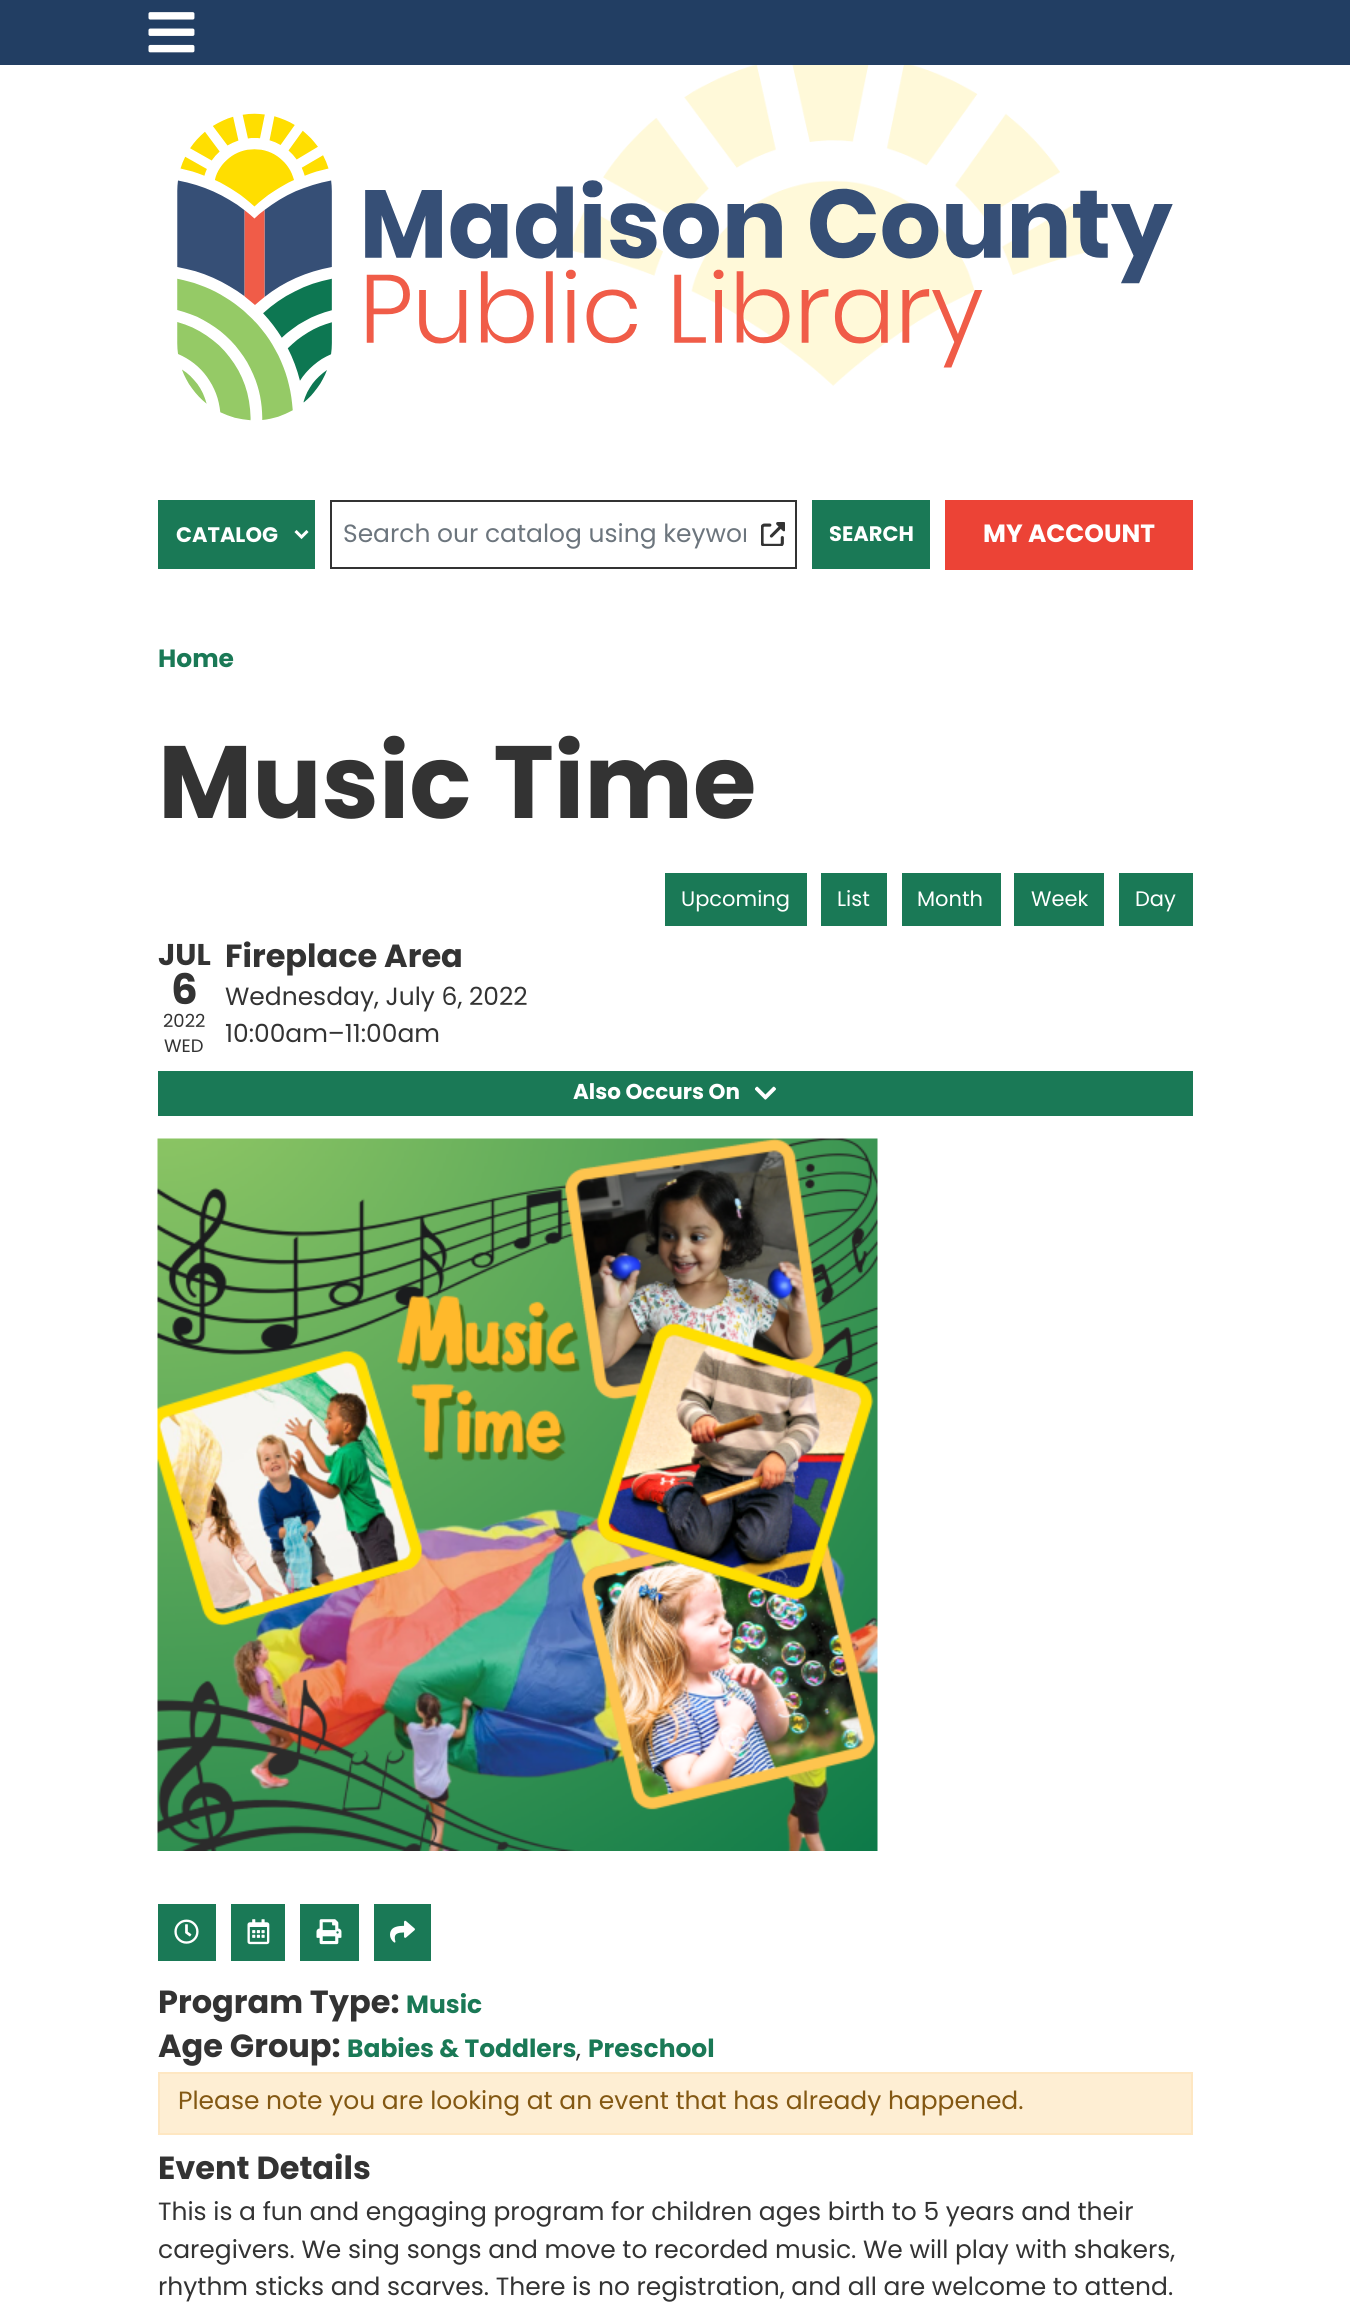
import math
import cairo

surface = cairo.ImageSurface(cairo.FORMAT_RGB24, 1350, 2308)
ctx = cairo.Context(surface)
options = cairo.FontOptions()
options.set_hint_metrics(cairo.HINT_METRICS_OFF)
options.set_hint_style(cairo.HINT_STYLE_NONE)
ctx.set_font_options(options)
ctx.set_miter_limit(4)


def picture(path, x, y, w, h):
    ctx.save()
    ctx.set_source_surface(cairo.ImageSurface.create_from_png(path), x, y)
    ctx.rectangle(x, y, w, h)
    ctx.fill()
    ctx.restore()


ctx.set_source_rgb(1, 1, 1)
ctx.paint()
ctx.set_source_rgb(0.133, 0.243, 0.388)
ctx.rectangle(0, 0, 1350, 65)
ctx.fill()
picture("img1.png", 148, 12, 47, 41)
picture("img2.png", 572, 65, 514, 321)
picture("img3.png", 177, 113, 996, 308)
ctx.set_source_rgb(0.102, 0.475, 0.337)
ctx.rectangle(159, 501, 155, 67)
ctx.fill_preserve()
ctx.stroke()
ctx.new_path()
ctx.move_to(295.5, 531)
ctx.line_to(301.5, 537)
ctx.line_to(307.5, 531)
ctx.set_source_rgb(1, 1, 1)
ctx.set_line_width(3)
ctx.stroke()
ctx.select_font_face("Poppins", cairo.FONT_SLANT_NORMAL, cairo.FONT_WEIGHT_BOLD)
ctx.set_font_size(21)
ctx.move_to(176, 542)
ctx.show_text("CATALOG")
ctx.rectangle(331, 501, 465, 67)
ctx.set_source_rgb(0.2, 0.2, 0.2)
ctx.set_line_width(2)
ctx.stroke()
ctx.save()
ctx.rectangle(344, 516, 402, 38)
ctx.clip()
ctx.select_font_face("Poppins")
ctx.set_font_size(24.95)
ctx.set_source_rgb(0.424, 0.459, 0.49)
ctx.move_to(343, 542)
ctx.show_text("Search our catalog using keywor")
ctx.restore()
picture("img4.png", 761, 522, 24, 24)
ctx.set_source_rgb(0.102, 0.475, 0.337)
ctx.rectangle(812, 500, 118, 69)
ctx.fill()
ctx.set_source_rgb(1, 1, 1)
ctx.move_to(829, 541)
ctx.show_text("SEARCH")
ctx.set_source_rgb(0.922, 0.263, 0.212)
ctx.rectangle(945, 500, 248, 70)
ctx.fill()
ctx.set_font_size(24.95)
ctx.set_source_rgb(1, 1, 1)
ctx.move_to(983, 542)
ctx.show_text("MY ACCOUNT")
ctx.set_source_rgb(0.102, 0.475, 0.337)
ctx.move_to(158, 667)
ctx.show_text("Home")
ctx.set_font_size(102.75)
ctx.set_source_rgb(0.2, 0.2, 0.2)
ctx.move_to(158, 818)
ctx.show_text("Music Time")
ctx.set_source_rgb(0.102, 0.475, 0.337)
ctx.rectangle(665, 873, 142, 53)
ctx.fill()
ctx.select_font_face("Poppins")
ctx.set_font_size(21)
ctx.set_source_rgb(1, 1, 1)
ctx.move_to(681, 906)
ctx.show_text("Upcoming")
ctx.set_source_rgb(0.102, 0.475, 0.337)
ctx.rectangle(821, 873, 66, 53)
ctx.fill()
ctx.set_source_rgb(1, 1, 1)
ctx.move_to(837, 906)
ctx.show_text("List")
ctx.set_source_rgb(0.102, 0.475, 0.337)
ctx.rectangle(902, 873, 99, 53)
ctx.fill()
ctx.set_source_rgb(1, 1, 1)
ctx.move_to(917, 906)
ctx.show_text("Month")
ctx.set_source_rgb(0.102, 0.475, 0.337)
ctx.rectangle(1014, 873, 90, 53)
ctx.fill()
ctx.set_source_rgb(1, 1, 1)
ctx.move_to(1031, 906)
ctx.show_text("Week")
ctx.set_source_rgb(0.102, 0.475, 0.337)
ctx.rectangle(1119, 873, 74, 53)
ctx.fill()
ctx.set_source_rgb(1, 1, 1)
ctx.move_to(1135, 906)
ctx.show_text("Day")
ctx.select_font_face("Poppins", cairo.FONT_SLANT_NORMAL, cairo.FONT_WEIGHT_BOLD)
ctx.set_font_size(30)
ctx.set_source_rgb(0.2, 0.2, 0.2)
ctx.move_to(158, 965)
ctx.show_text("JUL")
ctx.set_font_size(42)
ctx.move_to(171, 1004)
ctx.show_text("6")
ctx.select_font_face("Poppins")
ctx.set_font_size(18)
ctx.move_to(163, 1027)
ctx.show_text("2022")
ctx.move_to(164, 1052)
ctx.show_text("WED")
ctx.select_font_face("Poppins", cairo.FONT_SLANT_NORMAL, cairo.FONT_WEIGHT_BOLD)
ctx.set_font_size(32)
ctx.move_to(225, 967)
ctx.show_text("Fireplace Area")
ctx.select_font_face("Poppins")
ctx.set_font_size(24.95)
ctx.move_to(225, 1005)
ctx.show_text("Wednesday, July 6, 2022")
ctx.move_to(225, 1042)
ctx.show_text("10:00am–11:00am")
ctx.set_source_rgb(0.102, 0.475, 0.337)
ctx.rectangle(158, 1071, 1035, 45)
ctx.fill()
ctx.select_font_face("Poppins", cairo.FONT_SLANT_NORMAL, cairo.FONT_WEIGHT_BOLD)
ctx.set_font_size(21.5)
ctx.set_source_rgb(1, 1, 1)
ctx.move_to(573, 1099)
ctx.show_text("Also Occurs On")
picture("img5.png", 755, 1086, 21, 14)
picture("img6.png", 157, 1138, 721, 713)
ctx.set_source_rgb(0.102, 0.475, 0.337)
ctx.rectangle(158, 1904, 58, 57)
ctx.fill()
picture("img7.png", 174, 1919, 25, 25)
ctx.rectangle(231, 1904, 54, 57)
ctx.fill()
picture("img8.png", 247, 1919, 23, 26)
ctx.rectangle(300, 1904, 59, 57)
ctx.fill()
picture("img9.png", 316, 1919, 26, 26)
ctx.rectangle(374, 1904, 57, 57)
ctx.fill()
picture("img10.png", 390, 1920, 25, 23)
ctx.set_font_size(32)
ctx.set_source_rgb(0.2, 0.2, 0.2)
ctx.move_to(158, 2013)
ctx.show_text("Program Type:")
ctx.set_font_size(24.95)
ctx.set_source_rgb(0.102, 0.475, 0.337)
ctx.move_to(406, 2013)
ctx.show_text("Music")
ctx.set_font_size(32)
ctx.set_source_rgb(0.2, 0.2, 0.2)
ctx.move_to(158, 2057)
ctx.show_text("Age Group:")
ctx.set_font_size(24.95)
ctx.set_source_rgb(0.102, 0.475, 0.337)
ctx.move_to(347, 2057)
ctx.show_text("Babies & Toddlers")
ctx.select_font_face("Poppins")
ctx.set_source_rgb(0.2, 0.2, 0.2)
ctx.move_to(576, 2057)
ctx.show_text(",")
ctx.select_font_face("Poppins", cairo.FONT_SLANT_NORMAL, cairo.FONT_WEIGHT_BOLD)
ctx.set_source_rgb(0.102, 0.475, 0.337)
ctx.move_to(588, 2057)
ctx.show_text("Preschool")
ctx.set_source_rgb(0.996, 0.933, 0.827)
ctx.rectangle(159, 2073, 1033, 61)
ctx.fill_preserve()
ctx.set_source_rgb(0.996, 0.906, 0.761)
ctx.stroke()
ctx.select_font_face("Poppins")
ctx.set_source_rgb(0.514, 0.345, 0.075)
ctx.move_to(178, 2109)
ctx.show_text("Please note you are looking at an event that has already happened.")
ctx.select_font_face("Poppins", cairo.FONT_SLANT_NORMAL, cairo.FONT_WEIGHT_BOLD)
ctx.set_font_size(32)
ctx.set_source_rgb(0.2, 0.2, 0.2)
ctx.move_to(158, 2179)
ctx.show_text("Event Details")
ctx.select_font_face("Poppins")
ctx.set_font_size(24.95)
ctx.move_to(158, 2220)
ctx.show_text("This is a fun and engaging program for children ages birth to 5 years and their")
ctx.move_to(158, 2258)
ctx.show_text("caregivers. We sing songs and move to recorded music. We will play with shakers,")
ctx.move_to(158, 2295)
ctx.show_text("rhythm sticks and scarves. There is no registration, and all are welcome to attend.")
surface.write_to_png("page.png")
